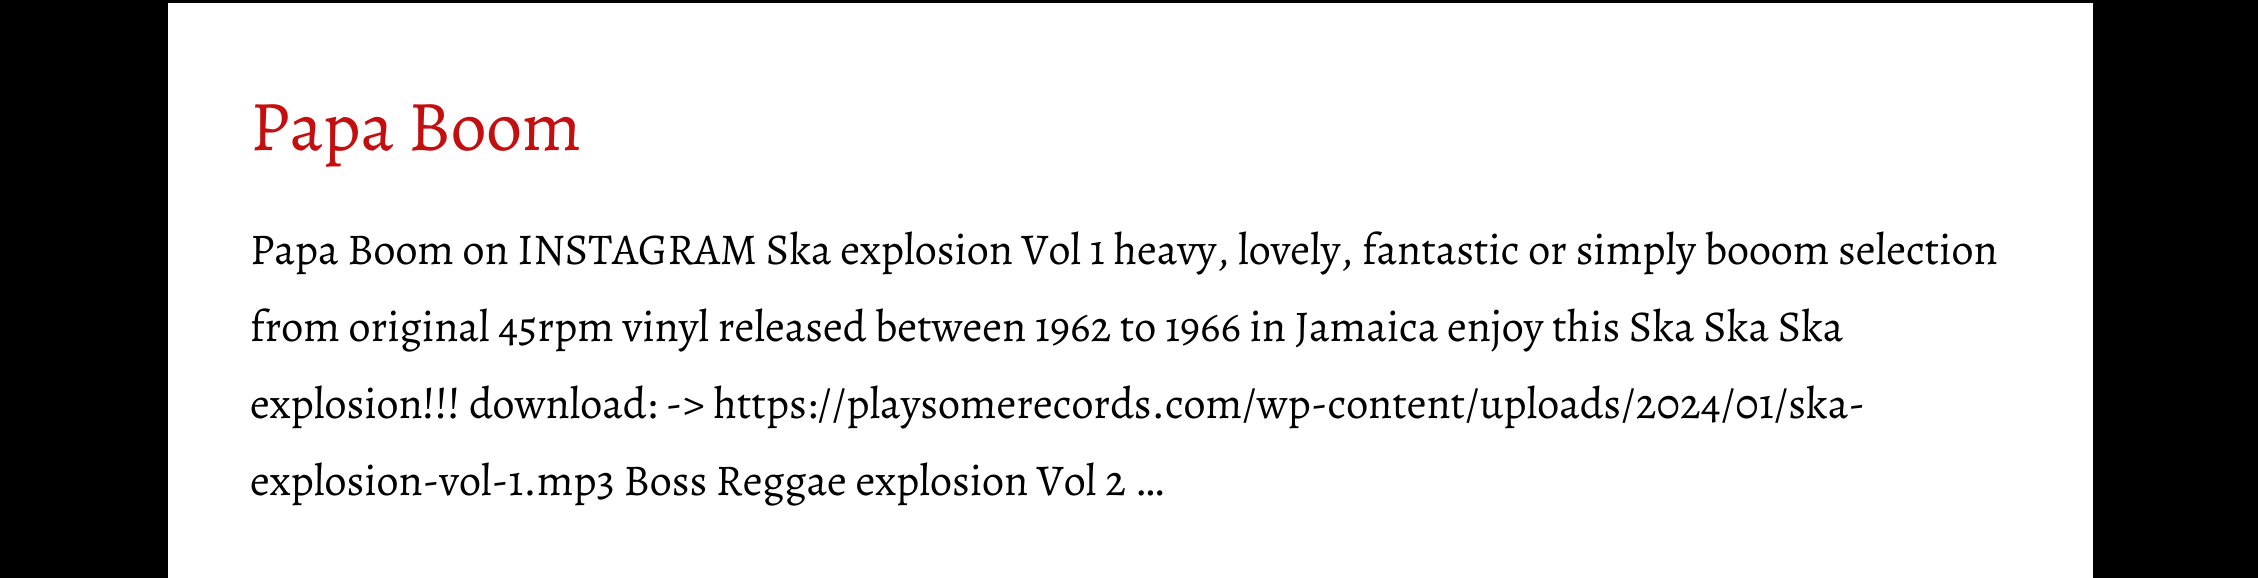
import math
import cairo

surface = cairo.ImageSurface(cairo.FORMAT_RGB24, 2258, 578)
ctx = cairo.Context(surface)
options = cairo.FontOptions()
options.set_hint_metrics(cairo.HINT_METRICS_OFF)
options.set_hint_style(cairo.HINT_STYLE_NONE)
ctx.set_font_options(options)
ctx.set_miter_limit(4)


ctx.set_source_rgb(0, 0, 0)
ctx.paint()
ctx.set_source_rgb(1, 1, 1)
ctx.rectangle(168, 3, 1925, 575)
ctx.fill()
ctx.select_font_face("Alegreya")
ctx.set_font_size(71.5)
ctx.set_source_rgb(0.765, 0.059, 0.059)
ctx.move_to(250, 150)
ctx.show_text("Papa Boom")
ctx.set_font_size(44)
ctx.set_source_rgb(0, 0, 0)
ctx.move_to(250, 264)
ctx.show_text("Papa Boom on INSTAGRAM Ska explosion Vol 1 heavy, lovely, fantastic or simply booom selection")
ctx.move_to(250, 341)
ctx.show_text("from original 45rpm vinyl released between 1962 to 1966 in Jamaica enjoy this Ska Ska Ska")
ctx.move_to(250, 418)
ctx.show_text("explosion!!! download: -> https://playsomerecords.com/wp-content/uploads/2024/01/ska-")
ctx.move_to(250, 495)
ctx.show_text("explosion-vol-1.mp3 Boss Reggae explosion Vol 2 …")
surface.write_to_png("page.png")
